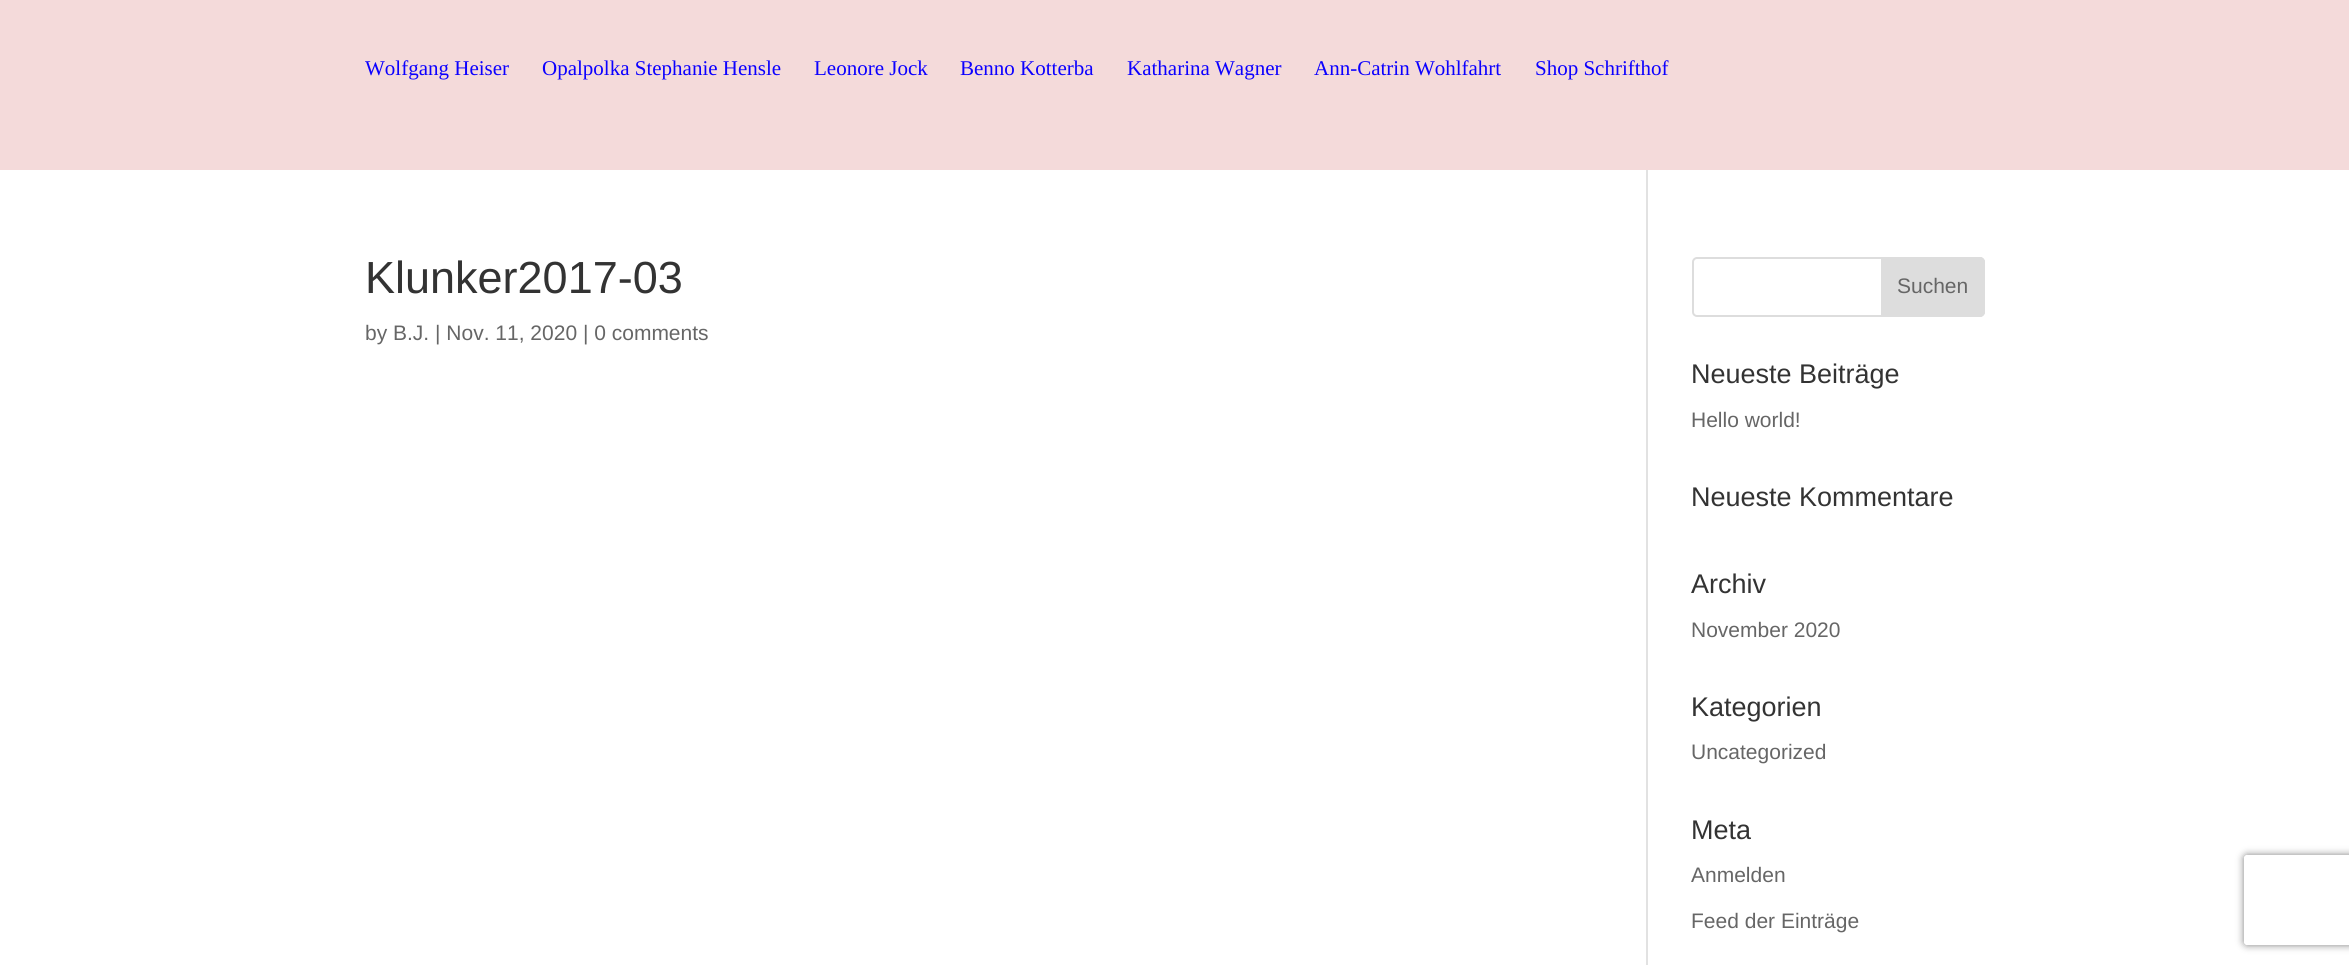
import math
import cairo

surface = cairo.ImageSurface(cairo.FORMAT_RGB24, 2349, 965)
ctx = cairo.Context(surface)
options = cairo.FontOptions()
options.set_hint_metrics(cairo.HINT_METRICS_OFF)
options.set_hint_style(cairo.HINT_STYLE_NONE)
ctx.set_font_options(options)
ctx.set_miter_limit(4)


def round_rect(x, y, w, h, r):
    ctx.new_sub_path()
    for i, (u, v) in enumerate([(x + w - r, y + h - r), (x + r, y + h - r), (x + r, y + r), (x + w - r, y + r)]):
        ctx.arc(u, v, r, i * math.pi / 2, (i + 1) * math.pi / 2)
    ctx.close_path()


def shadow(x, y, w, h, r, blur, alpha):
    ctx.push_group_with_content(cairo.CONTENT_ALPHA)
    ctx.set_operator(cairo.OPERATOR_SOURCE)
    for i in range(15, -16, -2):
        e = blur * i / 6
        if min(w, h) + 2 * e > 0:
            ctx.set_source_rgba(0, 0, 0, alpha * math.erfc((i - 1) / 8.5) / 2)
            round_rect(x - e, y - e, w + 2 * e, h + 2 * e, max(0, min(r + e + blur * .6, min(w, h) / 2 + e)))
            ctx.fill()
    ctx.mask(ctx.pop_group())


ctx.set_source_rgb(1, 1, 1)
ctx.paint()
ctx.set_source_rgb(0.957, 0.855, 0.855)
ctx.rectangle(0, 0, 2349, 170)
ctx.fill()
ctx.select_font_face("Liberation Serif")
ctx.set_font_size(21)
ctx.set_source_rgb(0.047, 0, 1)
ctx.move_to(365, 75)
ctx.show_text("Wolfgang Heiser")
ctx.move_to(542, 75)
ctx.show_text("Opalpolka Stephanie Hensle")
ctx.move_to(814, 75)
ctx.show_text("Leonore Jock")
ctx.move_to(960, 75)
ctx.show_text("Benno Kotterba")
ctx.move_to(1127, 75)
ctx.show_text("Katharina Wagner")
ctx.move_to(1314, 75)
ctx.show_text("Ann-Catrin Wohlfahrt")
ctx.move_to(1535, 75)
ctx.show_text("Shop Schrifthof")
ctx.set_source_rgb(0.886, 0.886, 0.886)
ctx.rectangle(1646, 170, 2, 795)
ctx.fill()
ctx.select_font_face("Liberation Sans")
ctx.set_font_size(45)
ctx.set_source_rgb(0.2, 0.2, 0.2)
ctx.move_to(365, 293)
ctx.show_text("Klunker2017-03")
ctx.set_font_size(21)
ctx.set_source_rgb(0.4, 0.4, 0.4)
ctx.move_to(365, 340)
ctx.show_text("by B.J. | Nov. 11, 2020 | 0 comments")
round_rect(1693, 258, 291, 58, 4)
ctx.set_source_rgb(0.867, 0.867, 0.867)
ctx.stroke()
ctx.new_path()
ctx.move_to(1882, 258)
ctx.line_to(1980, 258)
ctx.curve_to(1982, 258, 1984, 260, 1984, 262)
ctx.line_to(1984, 312)
ctx.curve_to(1984, 314, 1982, 316, 1980, 316)
ctx.line_to(1882, 316)
ctx.close_path()
ctx.fill_preserve()
ctx.stroke()
ctx.set_source_rgb(0.4, 0.4, 0.4)
ctx.move_to(1897, 293)
ctx.show_text("Suchen")
ctx.set_font_size(27)
ctx.set_source_rgb(0.2, 0.2, 0.2)
ctx.move_to(1691, 383)
ctx.show_text("Neueste Beiträge")
ctx.set_font_size(21)
ctx.set_source_rgb(0.4, 0.4, 0.4)
ctx.move_to(1691, 427)
ctx.show_text("Hello world!")
ctx.set_font_size(27)
ctx.set_source_rgb(0.2, 0.2, 0.2)
ctx.move_to(1691, 506)
ctx.show_text("Neueste Kommentare")
ctx.move_to(1691, 593)
ctx.show_text("Archiv")
ctx.set_font_size(21)
ctx.set_source_rgb(0.4, 0.4, 0.4)
ctx.move_to(1691, 637)
ctx.show_text("November 2020")
ctx.set_font_size(27)
ctx.set_source_rgb(0.2, 0.2, 0.2)
ctx.move_to(1691, 716)
ctx.show_text("Kategorien")
ctx.set_font_size(21)
ctx.set_source_rgb(0.4, 0.4, 0.4)
ctx.move_to(1691, 759)
ctx.show_text("Uncategorized")
ctx.set_font_size(27)
ctx.set_source_rgb(0.2, 0.2, 0.2)
ctx.move_to(1691, 839)
ctx.show_text("Meta")
ctx.set_font_size(21)
ctx.set_source_rgb(0.4, 0.4, 0.4)
ctx.move_to(1691, 882)
ctx.show_text("Anmelden")
ctx.move_to(1691, 928)
ctx.show_text("Feed der Einträge")
ctx.save()
ctx.set_fill_rule(cairo.FILL_RULE_EVEN_ODD)
ctx.new_path()
ctx.move_to(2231, 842)
ctx.line_to(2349, 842)
ctx.line_to(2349, 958)
ctx.line_to(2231, 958)
ctx.close_path()
ctx.move_to(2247, 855)
ctx.line_to(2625, 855)
ctx.curve_to(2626.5, 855, 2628, 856.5, 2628, 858)
ctx.line_to(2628, 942)
ctx.curve_to(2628, 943.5, 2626.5, 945, 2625, 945)
ctx.line_to(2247, 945)
ctx.curve_to(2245.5, 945, 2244, 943.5, 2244, 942)
ctx.line_to(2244, 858)
ctx.curve_to(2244, 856.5, 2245.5, 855, 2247, 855)
ctx.close_path()
ctx.clip()
ctx.set_source_rgb(0.502, 0.502, 0.502)
shadow(2244, 855, 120, 90, 3, 4, 1)
ctx.restore()
surface.write_to_png("page.png")
